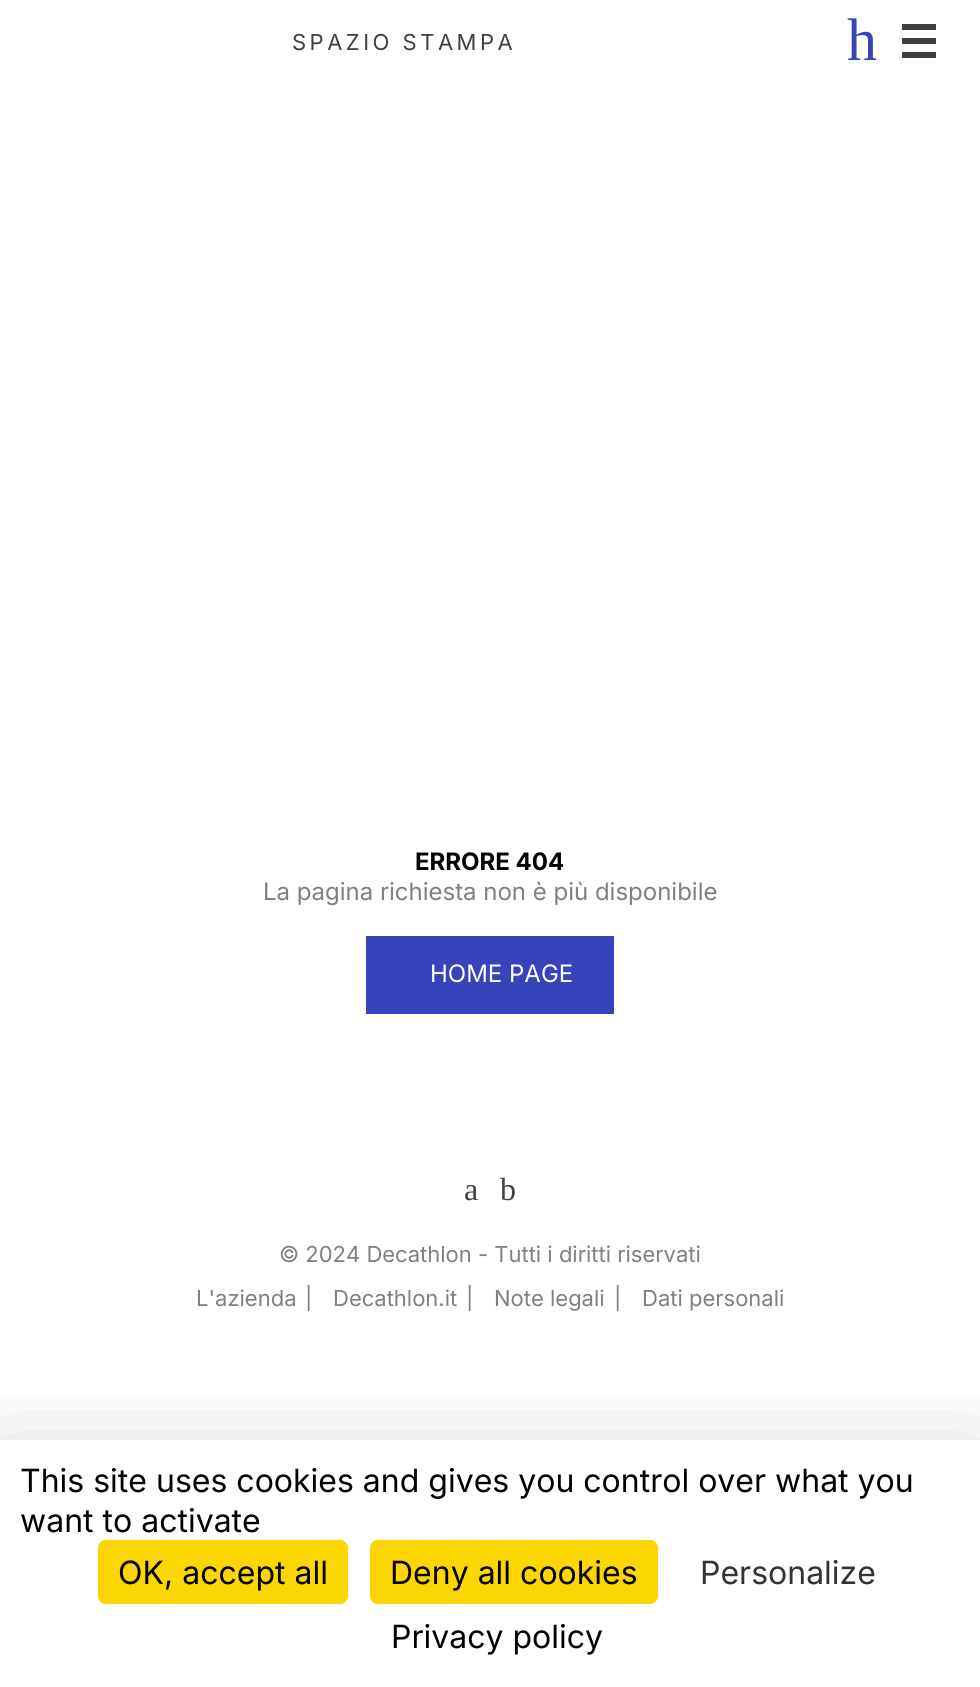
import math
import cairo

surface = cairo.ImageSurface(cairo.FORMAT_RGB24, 980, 1687)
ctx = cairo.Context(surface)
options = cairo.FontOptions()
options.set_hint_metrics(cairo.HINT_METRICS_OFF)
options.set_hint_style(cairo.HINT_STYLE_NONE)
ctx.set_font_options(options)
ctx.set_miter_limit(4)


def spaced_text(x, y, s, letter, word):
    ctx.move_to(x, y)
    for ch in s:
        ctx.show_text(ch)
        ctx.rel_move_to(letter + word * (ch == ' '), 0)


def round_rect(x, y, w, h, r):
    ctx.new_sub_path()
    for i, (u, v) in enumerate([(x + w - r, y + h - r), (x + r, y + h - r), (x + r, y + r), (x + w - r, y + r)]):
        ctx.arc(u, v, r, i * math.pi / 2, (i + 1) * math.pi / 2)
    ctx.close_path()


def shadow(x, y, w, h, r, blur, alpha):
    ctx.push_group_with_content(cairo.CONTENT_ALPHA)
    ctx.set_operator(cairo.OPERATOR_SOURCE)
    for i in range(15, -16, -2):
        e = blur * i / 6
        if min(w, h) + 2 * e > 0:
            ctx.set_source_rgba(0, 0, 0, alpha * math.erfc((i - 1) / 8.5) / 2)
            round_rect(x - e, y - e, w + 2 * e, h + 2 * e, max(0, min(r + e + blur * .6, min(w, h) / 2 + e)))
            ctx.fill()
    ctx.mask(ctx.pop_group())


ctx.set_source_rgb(1, 1, 1)
ctx.paint()
ctx.select_font_face("Inter")
ctx.set_font_size(22)
ctx.set_source_rgb(0.251, 0.251, 0.251)
spaced_text(292, 50, "SPAZIO STAMPA", 3.5, 0)
ctx.select_font_face("Liberation Serif")
ctx.set_font_size(60)
ctx.set_source_rgb(0.212, 0.263, 0.729)
spaced_text(847, 60, "h", -1, 0)
ctx.set_source_rgb(0.251, 0.251, 0.251)
ctx.rectangle(902, 38, 34, 6)
ctx.fill()
ctx.rectangle(902, 24, 34, 6)
ctx.fill()
ctx.rectangle(902, 52, 34, 6)
ctx.fill()
ctx.select_font_face("Inter", cairo.FONT_SLANT_NORMAL, cairo.FONT_WEIGHT_BOLD)
ctx.set_font_size(24)
ctx.set_source_rgb(0, 0, 0)
ctx.move_to(415, 870)
ctx.show_text("ERRORE 404")
ctx.select_font_face("Inter")
ctx.set_source_rgb(0.502, 0.502, 0.502)
ctx.move_to(263, 900)
ctx.show_text("La pagina richiesta non è più disponibile")
ctx.set_source_rgb(0.212, 0.263, 0.729)
ctx.rectangle(366, 936, 248, 78)
ctx.fill()
ctx.set_source_rgb(1, 1, 1)
ctx.move_to(430, 982)
ctx.show_text("HOME PAGE")
ctx.select_font_face("Liberation Serif")
ctx.set_font_size(32)
ctx.set_source_rgb(0.251, 0.251, 0.251)
ctx.move_to(464, 1200)
ctx.show_text("a")
ctx.move_to(500, 1200)
ctx.show_text("b")
ctx.select_font_face("Inter")
ctx.set_font_size(22)
ctx.set_source_rgb(0.502, 0.502, 0.502)
ctx.move_to(279, 1262)
ctx.show_text("© 2024 Decathlon - Tutti i diritti riservati")
ctx.move_to(196, 1306)
ctx.show_text("L'azienda")
ctx.move_to(305, 1306)
ctx.show_text("|")
ctx.move_to(333, 1306)
ctx.show_text("Decathlon.it")
ctx.move_to(466, 1306)
ctx.show_text("|")
ctx.move_to(494, 1306)
ctx.show_text("Note legali")
ctx.move_to(614, 1306)
ctx.show_text("|")
ctx.move_to(642, 1306)
ctx.show_text("Dati personali")
ctx.save()
ctx.rectangle(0, 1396, 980, 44)
ctx.clip()
ctx.set_source_rgb(0, 0, 0)
shadow(0, 1480, 980, 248, 0, 60, 0.25)
ctx.restore()
ctx.set_font_size(32)
ctx.set_source_rgb(0, 0, 0)
ctx.move_to(20, 1492)
ctx.show_text("This site uses cookies and gives you control over what you")
ctx.move_to(20, 1532)
ctx.show_text("want to activate")
ctx.set_source_rgb(0.984, 0.839, 0)
round_rect(98, 1540, 250, 64, 8)
ctx.fill()
ctx.set_source_rgb(0, 0, 0)
ctx.move_to(118, 1584)
ctx.show_text("OK, accept all")
ctx.set_source_rgb(0.984, 0.839, 0)
round_rect(370, 1540, 288, 64, 8)
ctx.fill()
ctx.set_source_rgb(0, 0, 0)
ctx.move_to(390, 1584)
ctx.show_text("Deny all cookies")
ctx.set_source_rgb(0.2, 0.2, 0.2)
ctx.move_to(700, 1584)
ctx.show_text("Personalize")
ctx.set_source_rgb(0, 0, 0)
ctx.move_to(391, 1648)
ctx.show_text("Privacy policy")
surface.write_to_png("page.png")
